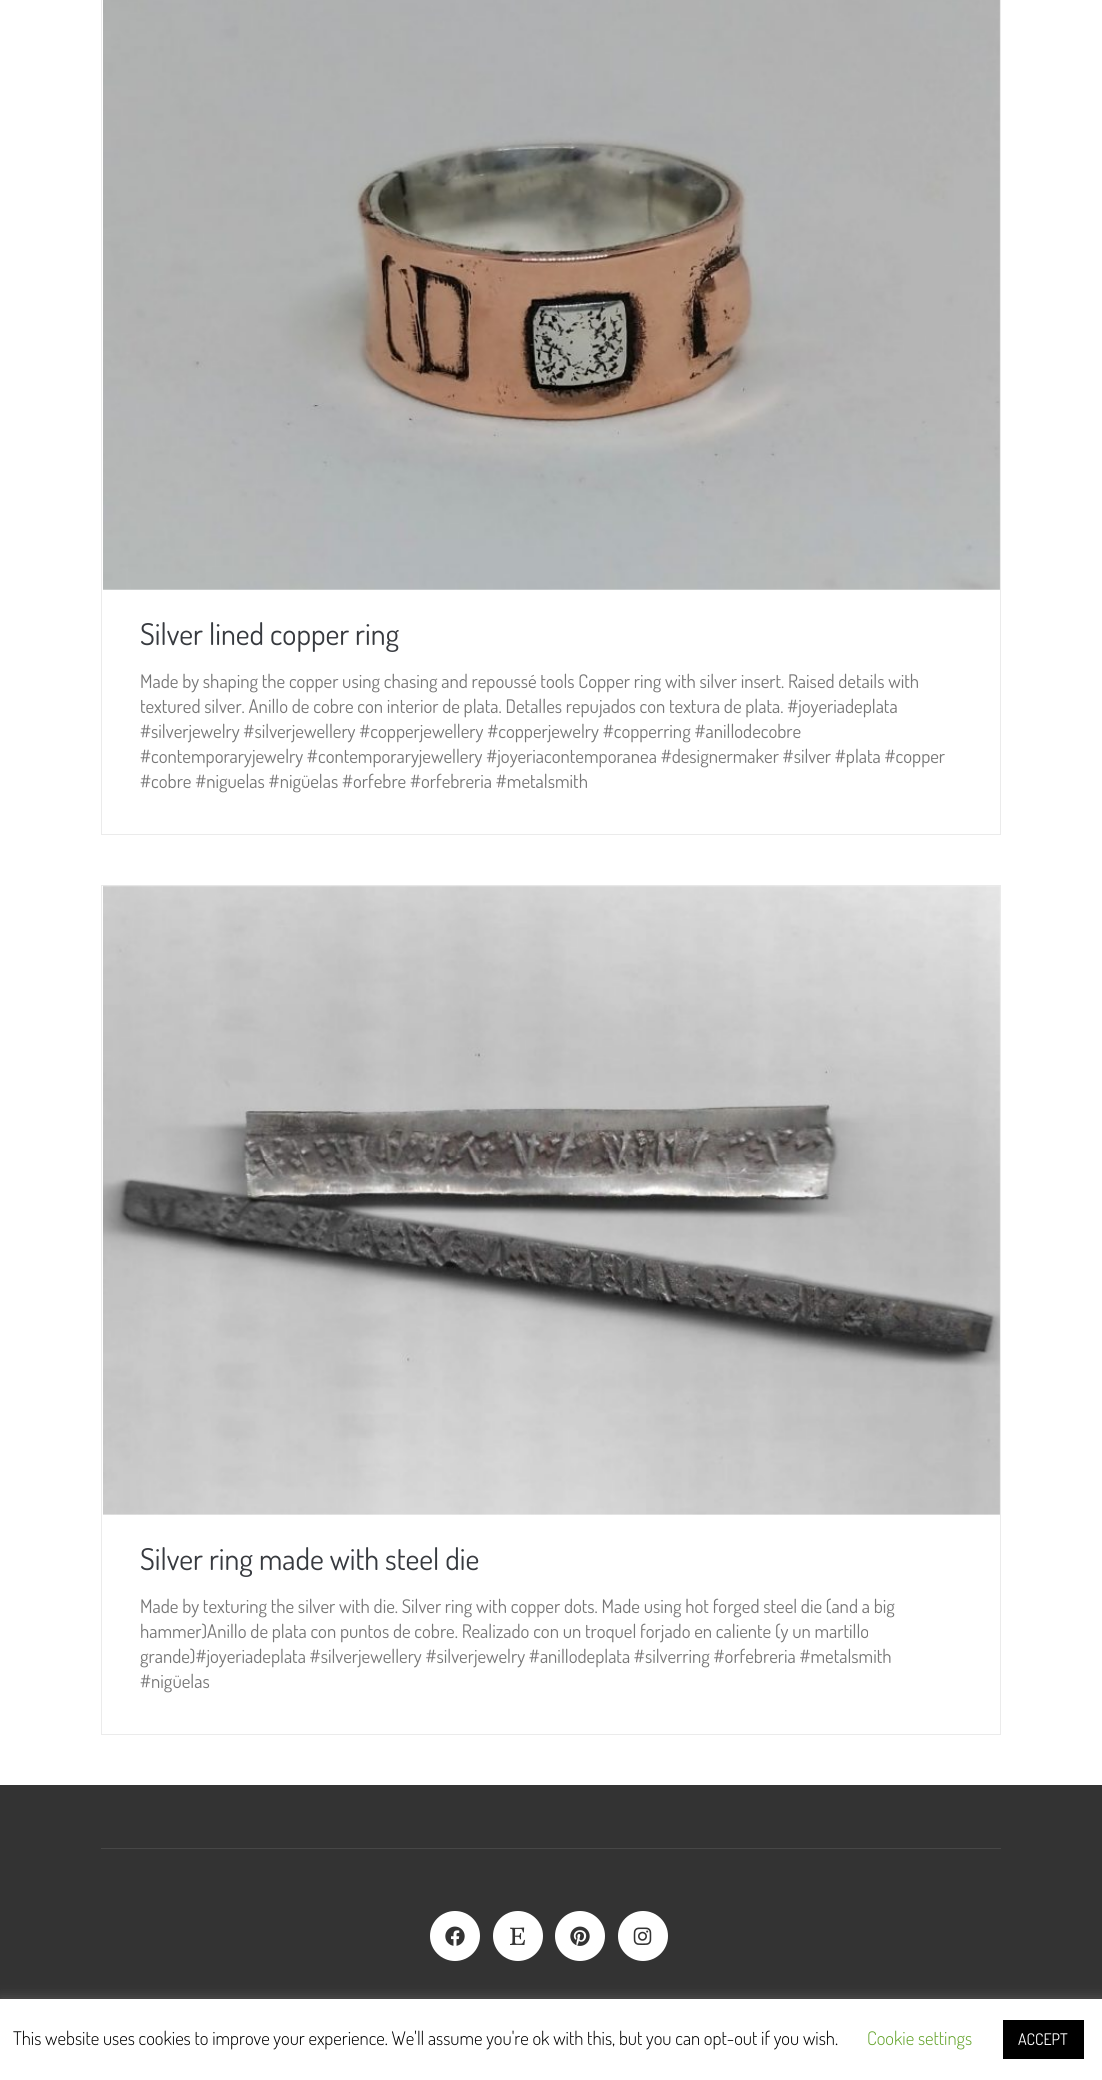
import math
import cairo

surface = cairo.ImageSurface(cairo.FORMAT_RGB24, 1102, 2080)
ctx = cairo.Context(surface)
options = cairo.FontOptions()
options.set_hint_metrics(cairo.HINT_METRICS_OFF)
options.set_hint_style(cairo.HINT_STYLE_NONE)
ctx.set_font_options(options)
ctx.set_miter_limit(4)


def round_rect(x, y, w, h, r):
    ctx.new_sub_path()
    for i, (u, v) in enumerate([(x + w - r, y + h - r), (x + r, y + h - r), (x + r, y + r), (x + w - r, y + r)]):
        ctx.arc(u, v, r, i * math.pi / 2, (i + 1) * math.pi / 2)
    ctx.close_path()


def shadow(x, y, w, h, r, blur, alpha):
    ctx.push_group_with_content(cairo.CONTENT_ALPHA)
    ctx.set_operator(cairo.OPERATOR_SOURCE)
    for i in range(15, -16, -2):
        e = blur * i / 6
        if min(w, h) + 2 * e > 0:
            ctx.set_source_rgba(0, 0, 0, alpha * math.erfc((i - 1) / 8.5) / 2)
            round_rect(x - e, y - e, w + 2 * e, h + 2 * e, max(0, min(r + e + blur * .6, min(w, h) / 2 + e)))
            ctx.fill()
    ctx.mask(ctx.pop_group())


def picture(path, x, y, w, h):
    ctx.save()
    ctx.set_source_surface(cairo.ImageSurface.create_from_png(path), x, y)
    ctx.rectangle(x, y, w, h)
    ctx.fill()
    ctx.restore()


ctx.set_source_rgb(1, 1, 1)
ctx.paint()
picture("img1.png", 103, 0, 897, 590)
ctx.set_source_rgb(0.918, 0.918, 0.918)
ctx.rectangle(1000, 0, 1, 835)
ctx.fill()
ctx.rectangle(101, 834, 900, 1)
ctx.fill()
ctx.rectangle(101, 0, 1, 835)
ctx.fill()
ctx.select_font_face("Dosis")
ctx.set_font_size(30)
ctx.set_source_rgb(0.216, 0.227, 0.247)
ctx.move_to(140, 645)
ctx.show_text("Silver lined copper ring")
ctx.set_font_size(18.75)
ctx.set_source_rgb(0.467, 0.467, 0.467)
ctx.move_to(140, 688)
ctx.show_text("Made by shaping the copper using chasing and repoussé tools Copper ring with silver insert. Raised details with")
ctx.move_to(140, 713)
ctx.show_text("textured silver. Anillo de cobre con interior de plata. Detalles repujados con textura de plata. #joyeriadeplata")
ctx.move_to(140, 738)
ctx.show_text("#silverjewelry #silverjewellery #copperjewellery #copperjewelry #copperring #anillodecobre")
ctx.move_to(140, 763)
ctx.show_text("#contemporaryjewelry #contemporaryjewellery #joyeriacontemporanea #designermaker #silver #plata #copper")
ctx.move_to(140, 788)
ctx.show_text("#cobre #niguelas #nigüelas #orfebre #orfebreria #metalsmith")
ctx.set_source_rgb(0.918, 0.918, 0.918)
ctx.rectangle(101, 885, 900, 1)
ctx.fill()
ctx.rectangle(1000, 885, 1, 630)
ctx.fill()
ctx.rectangle(101, 885, 1, 630)
ctx.fill()
picture("img2.png", 103, 885, 897, 630)
ctx.rectangle(1000, 1515, 1, 220)
ctx.fill()
ctx.rectangle(101, 1734, 900, 1)
ctx.fill()
ctx.rectangle(101, 1515, 1, 220)
ctx.fill()
ctx.set_font_size(30)
ctx.set_source_rgb(0.216, 0.227, 0.247)
ctx.move_to(140, 1570)
ctx.show_text("Silver ring made with steel die")
ctx.set_font_size(18.75)
ctx.set_source_rgb(0.467, 0.467, 0.467)
ctx.move_to(140, 1613)
ctx.show_text("Made by texturing the silver with die. Silver ring with copper dots. Made using hot forged steel die (and a big")
ctx.move_to(140, 1638)
ctx.show_text("hammer)Anillo de plata con puntos de cobre. Realizado con un troquel forjado en caliente (y un martillo")
ctx.move_to(140, 1663)
ctx.show_text("grande)#joyeriadeplata #silverjewellery #silverjewelry #anillodeplata #silverring #orfebreria #metalsmith")
ctx.move_to(140, 1688)
ctx.show_text("#nigüelas")
ctx.set_source_rgb(0.2, 0.2, 0.2)
ctx.rectangle(0, 1785, 1102, 214)
ctx.fill()
ctx.set_source_rgb(0.278, 0.278, 0.278)
ctx.rectangle(101, 1848, 900, 1)
ctx.fill()
ctx.set_source_rgb(1, 1, 1)
ctx.arc(455, 1936, 25, 0, 2 * math.pi)
ctx.fill()
picture("img3.png", 445, 1926, 20, 20)
ctx.arc(518, 1936, 25, 0, 2 * math.pi)
ctx.fill()
picture("img4.png", 510, 1927, 15, 18)
ctx.arc(580, 1936, 25, 0, 2 * math.pi)
ctx.fill()
picture("img5.png", 570, 1926, 20, 20)
ctx.arc(643, 1936, 25, 0, 2 * math.pi)
ctx.fill()
picture("img6.png", 633, 1927, 19, 18)
ctx.set_source_rgb(0.675, 0.671, 0.671)
shadow(0, 1998, 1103, 81, 0, 6, 0.3)
ctx.set_source_rgb(1, 1, 1)
ctx.rectangle(0, 1999, 1102, 81)
ctx.fill()
ctx.select_font_face("Dosis Light")
ctx.set_source_rgb(0, 0, 0)
ctx.move_to(13, 2045)
ctx.show_text("This website uses cookies to improve your experience. We'll assume you're ok with this, but you can opt-out if you wish.")
ctx.set_source_rgb(0.384, 0.639, 0.161)
ctx.move_to(867, 2045)
ctx.show_text("Cookie settings")
ctx.set_source_rgb(0, 0, 0)
ctx.rectangle(1003, 2020, 81, 39)
ctx.fill()
ctx.select_font_face("Dosis")
ctx.set_font_size(16)
ctx.set_source_rgb(1, 1, 1)
ctx.move_to(1018, 2045)
ctx.show_text("ACCEPT")
surface.write_to_png("page.png")
